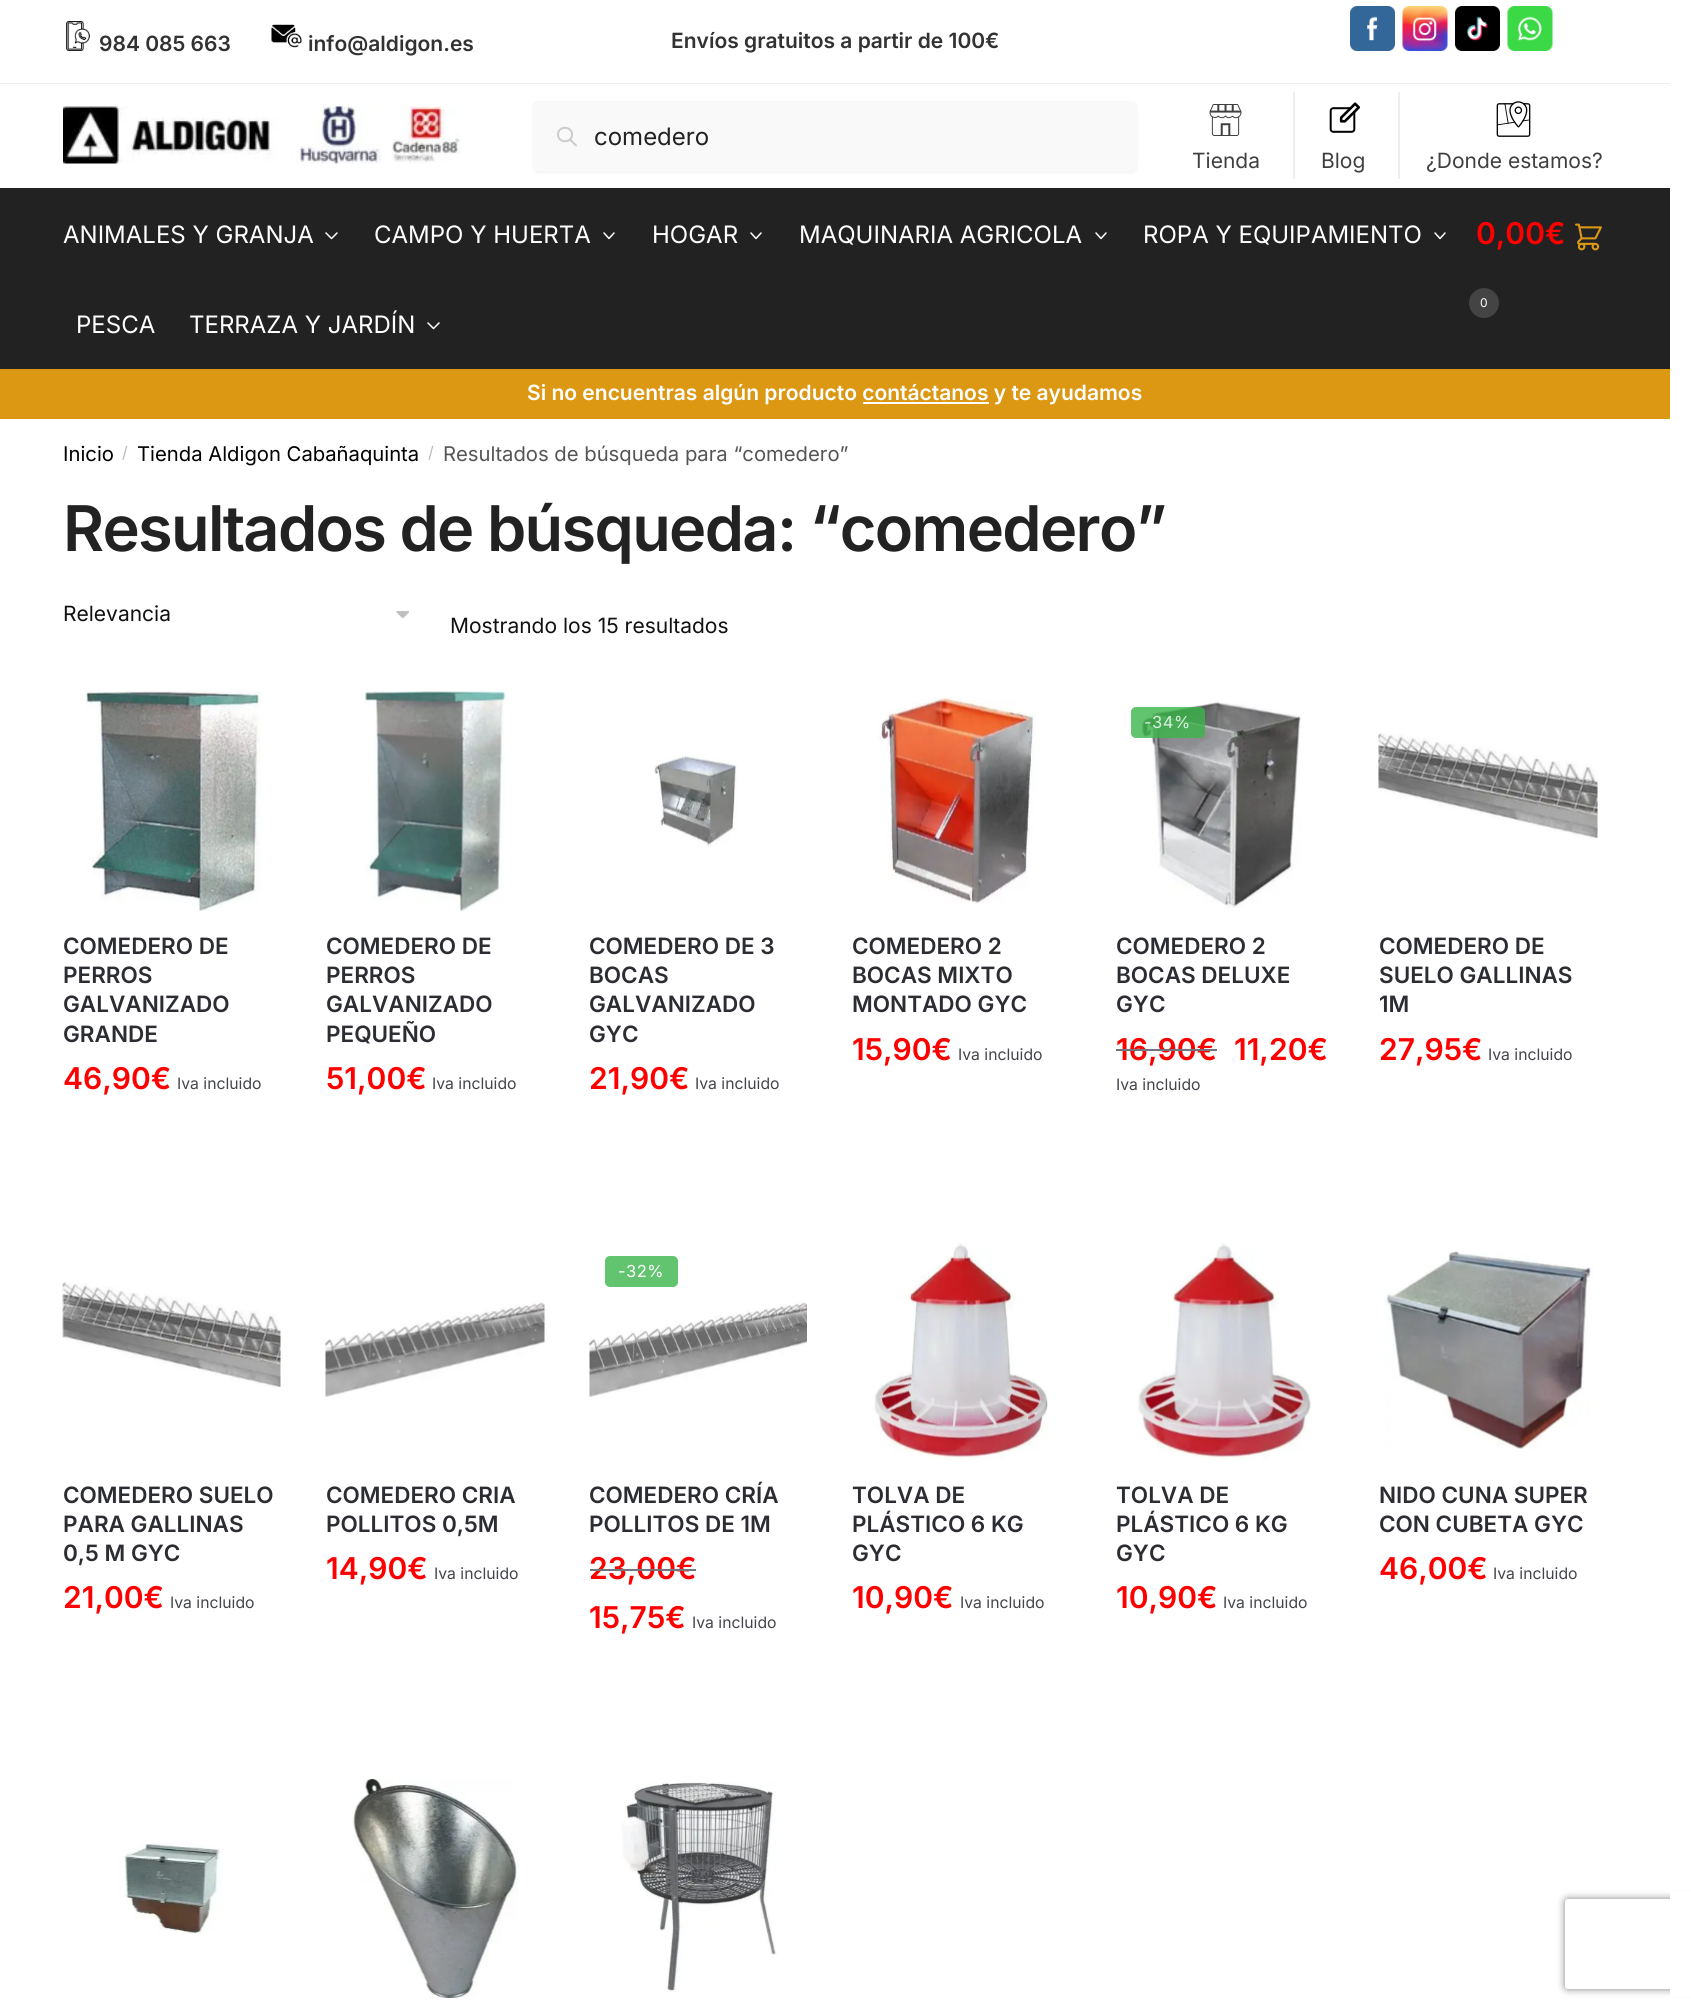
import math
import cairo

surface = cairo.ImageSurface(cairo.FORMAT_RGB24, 1691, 2009)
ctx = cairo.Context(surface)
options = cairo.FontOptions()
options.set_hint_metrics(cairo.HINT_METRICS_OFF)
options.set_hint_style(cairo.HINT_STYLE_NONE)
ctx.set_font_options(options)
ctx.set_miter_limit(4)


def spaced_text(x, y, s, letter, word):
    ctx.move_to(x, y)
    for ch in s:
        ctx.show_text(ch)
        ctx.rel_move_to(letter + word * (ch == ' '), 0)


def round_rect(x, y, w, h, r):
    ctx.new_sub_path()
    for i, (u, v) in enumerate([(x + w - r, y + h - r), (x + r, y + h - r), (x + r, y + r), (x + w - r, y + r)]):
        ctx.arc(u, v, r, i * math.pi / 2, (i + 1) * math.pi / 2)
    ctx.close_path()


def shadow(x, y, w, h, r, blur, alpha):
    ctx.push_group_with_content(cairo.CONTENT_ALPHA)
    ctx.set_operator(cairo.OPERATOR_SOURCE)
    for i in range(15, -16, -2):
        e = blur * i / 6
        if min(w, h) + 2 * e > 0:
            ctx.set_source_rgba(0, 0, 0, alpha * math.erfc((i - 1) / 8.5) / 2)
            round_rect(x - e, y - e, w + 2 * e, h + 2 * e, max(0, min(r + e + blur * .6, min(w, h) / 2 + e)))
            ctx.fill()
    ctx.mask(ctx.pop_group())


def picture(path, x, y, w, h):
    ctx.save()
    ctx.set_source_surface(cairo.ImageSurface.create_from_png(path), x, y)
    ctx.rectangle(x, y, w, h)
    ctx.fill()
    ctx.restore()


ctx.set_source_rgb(1, 1, 1)
ctx.paint()
ctx.set_source_rgb(0.933, 0.933, 0.933)
ctx.rectangle(0, 83, 1670, 1)
ctx.fill()
picture("img1.png", 66, 21, 24, 30)
ctx.select_font_face("Inter SemiBold")
ctx.set_font_size(21)
ctx.set_source_rgb(0.196, 0.196, 0.196)
ctx.move_to(99, 51)
ctx.show_text("984 085 663")
picture("img2.png", 271, 24, 31, 24)
ctx.move_to(308, 51)
ctx.show_text("info@aldigon.es")
ctx.move_to(671, 48)
ctx.show_text("Envíos gratuitos a partir de 100€")
picture("img3.png", 1350, 6, 45, 45)
picture("img4.png", 1402, 6, 46, 45)
picture("img5.png", 1455, 6, 45, 45)
picture("img6.png", 1507, 6, 46, 45)
picture("img7.png", 63, 106, 398, 58)
ctx.set_source_rgb(0, 0, 0)
shadow(533, 102, 604, 71, 6, 1.5, 0.05)
ctx.set_source_rgb(0.973, 0.973, 0.973)
round_rect(533, 101, 604, 70, 6)
ctx.fill()
ctx.new_path()
ctx.move_to(576, 145.5)
ctx.line_to(570, 139.5)
ctx.move_to(572, 134.5)
ctx.curve_to(572, 143.5, 558, 143.5, 558, 134.5)
ctx.curve_to(558, 125.5, 572, 125.5, 572, 134.5)
ctx.close_path()
ctx.set_source_rgb(0.8, 0.8, 0.8)
ctx.set_line_cap(cairo.LINE_CAP_ROUND)
ctx.set_line_join(cairo.LINE_JOIN_ROUND)
ctx.stroke()
ctx.select_font_face("Inter")
ctx.set_font_size(24)
ctx.set_source_rgb(0.133, 0.133, 0.133)
ctx.move_to(594, 145)
ctx.show_text("comedero")
picture("img8.png", 1209, 104, 33, 32)
ctx.set_font_size(21)
ctx.set_source_rgb(0.251, 0.251, 0.251)
ctx.move_to(1192, 168)
ctx.show_text("Tienda")
ctx.set_source_rgb(0.933, 0.933, 0.933)
ctx.rectangle(1293, 92, 2, 87)
ctx.fill()
picture("img9.png", 1329, 102, 32, 31)
ctx.set_source_rgb(0.251, 0.251, 0.251)
ctx.move_to(1321, 168)
ctx.show_text("Blog")
ctx.set_source_rgb(0.933, 0.933, 0.933)
ctx.rectangle(1398, 92, 2, 87)
ctx.fill()
picture("img10.png", 1496, 101, 35, 36)
ctx.set_source_rgb(0.251, 0.251, 0.251)
ctx.move_to(1426, 168)
ctx.show_text("¿Donde estamos?")
ctx.set_source_rgb(0.133, 0.133, 0.133)
ctx.rectangle(0, 188, 1670, 181)
ctx.fill()
ctx.set_font_size(24)
ctx.set_source_rgb(1, 1, 1)
ctx.move_to(63, 243)
ctx.show_text("ANIMALES Y GRANJA")
ctx.new_path()
ctx.move_to(337, 233)
ctx.line_to(331.5, 238.5)
ctx.line_to(326, 233)
ctx.set_line_width(1.5)
ctx.stroke()
ctx.move_to(374, 243)
ctx.show_text("CAMPO Y HUERTA")
ctx.new_path()
ctx.move_to(614, 233)
ctx.line_to(609, 238.5)
ctx.line_to(604, 233)
ctx.stroke()
ctx.move_to(652, 243)
ctx.show_text("HOGAR")
ctx.new_path()
ctx.move_to(761, 233)
ctx.line_to(756, 238.5)
ctx.line_to(751, 233)
ctx.stroke()
ctx.move_to(799, 243)
ctx.show_text("MAQUINARIA AGRICOLA")
ctx.new_path()
ctx.move_to(1106, 233)
ctx.line_to(1101, 238.5)
ctx.line_to(1096, 233)
ctx.stroke()
ctx.move_to(1143, 243)
ctx.show_text("ROPA Y EQUIPAMIENTO")
ctx.new_path()
ctx.move_to(1445, 233)
ctx.line_to(1440, 238.5)
ctx.line_to(1435, 233)
ctx.stroke()
ctx.move_to(76, 333)
ctx.show_text("PESCA")
ctx.move_to(189, 333)
ctx.show_text("TERRAZA Y JARDÍN")
ctx.new_path()
ctx.move_to(439, 323)
ctx.line_to(433.5, 328.5)
ctx.line_to(428, 323)
ctx.stroke()
ctx.select_font_face("Inter SemiBold")
ctx.set_font_size(30)
ctx.set_source_rgb(1, 0, 0)
ctx.move_to(1476, 244)
ctx.show_text("0,00€")
picture("img11.png", 1575, 223, 27, 28)
ctx.set_source_rgb(0.267, 0.267, 0.267)
ctx.arc(1484, 303, 14, 0, 2 * math.pi)
ctx.fill_preserve()
ctx.set_line_width(2)
ctx.set_line_cap(cairo.LINE_CAP_BUTT)
ctx.set_line_join(cairo.LINE_JOIN_MITER)
ctx.stroke()
ctx.select_font_face("Inter")
ctx.set_font_size(12)
ctx.set_source_rgb(1, 1, 1)
ctx.move_to(1480, 307)
ctx.show_text("0")
ctx.set_source_rgb(0.863, 0.596, 0.078)
ctx.rectangle(0, 369, 1670, 50)
ctx.fill()
ctx.select_font_face("Inter SemiBold")
ctx.set_font_size(21)
ctx.set_source_rgb(1, 1, 1)
ctx.move_to(527, 400)
ctx.show_text("Si no encuentras algún producto contáctanos y te ayudamos")
ctx.rectangle(863, 402, 126, 2)
ctx.fill()
ctx.select_font_face("Inter")
ctx.set_font_size(20.25)
ctx.set_source_rgb(0, 0, 0)
ctx.move_to(63, 461)
ctx.show_text("Inicio")
ctx.set_font_size(16)
ctx.set_source_rgb(0.733, 0.733, 0.733)
ctx.move_to(122, 458)
ctx.show_text("/")
ctx.set_font_size(20.25)
ctx.set_source_rgb(0, 0, 0)
ctx.move_to(137, 461)
ctx.show_text("Tienda Aldigon Cabañaquinta")
ctx.set_font_size(16)
ctx.set_source_rgb(0.733, 0.733, 0.733)
ctx.move_to(428, 458)
ctx.show_text("/")
ctx.set_font_size(20.25)
ctx.set_source_rgb(0.333, 0.333, 0.333)
ctx.move_to(443, 461)
ctx.show_text("Resultados de búsqueda para “comedero”")
ctx.select_font_face("Inter SemiBold")
ctx.set_font_size(63)
ctx.set_source_rgb(0.133, 0.133, 0.133)
spaced_text(63, 551, "Resultados de búsqueda: “comedero”", -1.65, 0)
picture("img12.png", 396, 611, 14, 8)
ctx.select_font_face("Inter")
ctx.set_font_size(21)
ctx.set_source_rgb(0.067, 0.067, 0.067)
ctx.move_to(63, 621)
ctx.show_text("Relevancia")
ctx.move_to(450, 633)
ctx.show_text("Mostrando los 15 resultados")
picture("img13.png", 85, 691, 177, 220)
ctx.select_font_face("Inter SemiBold")
ctx.set_font_size(22.5)
ctx.set_source_rgb(0.173, 0.176, 0.2)
ctx.move_to(63, 954)
ctx.show_text("COMEDERO DE")
ctx.move_to(63, 983)
ctx.show_text("PERROS")
ctx.move_to(63, 1012)
ctx.show_text("GALVANIZADO")
ctx.move_to(63, 1042)
ctx.show_text("GRANDE")
ctx.set_font_size(30)
ctx.set_source_rgb(1, 0, 0)
ctx.move_to(63, 1089)
ctx.show_text("46,90€")
ctx.select_font_face("Inter")
ctx.set_font_size(15.75)
ctx.set_source_rgb(0.263, 0.271, 0.294)
ctx.move_to(177, 1089)
ctx.show_text("Iva incluido")
picture("img14.png", 364, 691, 143, 220)
ctx.select_font_face("Inter SemiBold")
ctx.set_font_size(22.5)
ctx.set_source_rgb(0.173, 0.176, 0.2)
ctx.move_to(326, 954)
ctx.show_text("COMEDERO DE")
ctx.move_to(326, 983)
ctx.show_text("PERROS")
ctx.move_to(326, 1012)
ctx.show_text("GALVANIZADO")
ctx.move_to(326, 1042)
ctx.show_text("PEQUEÑO")
ctx.set_font_size(30)
ctx.set_source_rgb(1, 0, 0)
ctx.move_to(326, 1089)
ctx.show_text("51,00€")
ctx.select_font_face("Inter")
ctx.set_font_size(15.75)
ctx.set_source_rgb(0.263, 0.271, 0.294)
ctx.move_to(432, 1089)
ctx.show_text("Iva incluido")
picture("img15.png", 654, 755, 84, 92)
ctx.select_font_face("Inter SemiBold")
ctx.set_font_size(22.5)
ctx.set_source_rgb(0.173, 0.176, 0.2)
ctx.move_to(589, 954)
ctx.show_text("COMEDERO DE 3")
ctx.move_to(589, 983)
ctx.show_text("BOCAS")
ctx.move_to(589, 1012)
ctx.show_text("GALVANIZADO")
ctx.move_to(589, 1042)
ctx.show_text("GYC")
ctx.set_font_size(30)
ctx.set_source_rgb(1, 0, 0)
ctx.move_to(589, 1089)
ctx.show_text("21,90€")
ctx.select_font_face("Inter")
ctx.set_font_size(15.75)
ctx.set_source_rgb(0.263, 0.271, 0.294)
ctx.move_to(695, 1089)
ctx.show_text("Iva incluido")
picture("img16.png", 878, 697, 158, 208)
ctx.select_font_face("Inter SemiBold")
ctx.set_font_size(22.5)
ctx.set_source_rgb(0.173, 0.176, 0.2)
ctx.move_to(852, 954)
ctx.show_text("COMEDERO 2")
ctx.move_to(852, 983)
ctx.show_text("BOCAS MIXTO")
ctx.move_to(852, 1012)
ctx.show_text("MONTADO GYC")
ctx.set_font_size(30)
ctx.set_source_rgb(1, 0, 0)
ctx.move_to(852, 1060)
ctx.show_text("15,90€")
ctx.select_font_face("Inter")
ctx.set_font_size(15.75)
ctx.set_source_rgb(0.263, 0.271, 0.294)
ctx.move_to(958, 1060)
ctx.show_text("Iva incluido")
picture("img17.png", 1141, 701, 161, 207)
ctx.set_source_rgba(0.231, 0.71, 0.29, 0.8)
round_rect(1131, 707, 74, 31, 5)
ctx.fill()
ctx.set_font_size(16.5)
ctx.set_source_rgb(0.855, 0.933, 0.867)
spaced_text(1144, 728, "-34%", 0.5, 0)
ctx.select_font_face("Inter SemiBold")
ctx.set_font_size(22.5)
ctx.set_source_rgb(0.173, 0.176, 0.2)
ctx.move_to(1116, 954)
ctx.show_text("COMEDERO 2")
ctx.move_to(1116, 983)
ctx.show_text("BOCAS DELUXE")
ctx.move_to(1116, 1012)
ctx.show_text("GYC")
ctx.set_font_size(30)
ctx.set_source_rgb(1, 0, 0)
ctx.move_to(1116, 1060)
ctx.show_text("16,90€")
ctx.set_source_rgb(0.447, 0.463, 0.486)
ctx.rectangle(1116, 1049, 101, 2)
ctx.fill()
ctx.set_source_rgb(1, 0, 0)
ctx.move_to(1234, 1060)
ctx.show_text("11,20€")
ctx.select_font_face("Inter")
ctx.set_font_size(15.75)
ctx.set_source_rgb(0.263, 0.271, 0.294)
ctx.move_to(1116, 1090)
ctx.show_text("Iva incluido")
picture("img18.png", 1378, 733, 220, 106)
ctx.select_font_face("Inter SemiBold")
ctx.set_font_size(22.5)
ctx.set_source_rgb(0.173, 0.176, 0.2)
ctx.move_to(1379, 954)
ctx.show_text("COMEDERO DE")
ctx.move_to(1379, 983)
ctx.show_text("SUELO GALLINAS")
ctx.move_to(1379, 1012)
ctx.show_text("1M")
ctx.set_font_size(30)
ctx.set_source_rgb(1, 0, 0)
ctx.move_to(1379, 1060)
ctx.show_text("27,95€")
ctx.select_font_face("Inter")
ctx.set_font_size(15.75)
ctx.set_source_rgb(0.263, 0.271, 0.294)
ctx.move_to(1488, 1060)
ctx.show_text("Iva incluido")
picture("img19.png", 62, 1282, 219, 106)
ctx.select_font_face("Inter SemiBold")
ctx.set_font_size(22.5)
ctx.set_source_rgb(0.173, 0.176, 0.2)
ctx.move_to(63, 1503)
ctx.show_text("COMEDERO SUELO")
ctx.move_to(63, 1532)
ctx.show_text("PARA GALLINAS")
ctx.move_to(63, 1561)
ctx.show_text("0,5 M GYC")
ctx.set_font_size(30)
ctx.set_source_rgb(1, 0, 0)
ctx.move_to(63, 1608)
ctx.show_text("21,00€")
ctx.select_font_face("Inter")
ctx.set_font_size(15.75)
ctx.set_source_rgb(0.263, 0.271, 0.294)
ctx.move_to(170, 1608)
ctx.show_text("Iva incluido")
picture("img20.png", 325, 1302, 220, 96)
ctx.select_font_face("Inter SemiBold")
ctx.set_font_size(22.5)
ctx.set_source_rgb(0.173, 0.176, 0.2)
ctx.move_to(326, 1503)
ctx.show_text("COMEDERO CRIA")
ctx.move_to(326, 1532)
ctx.show_text("POLLITOS 0,5M")
ctx.set_font_size(30)
ctx.set_source_rgb(1, 0, 0)
ctx.move_to(326, 1579)
ctx.show_text("14,90€")
ctx.select_font_face("Inter")
ctx.set_font_size(15.75)
ctx.set_source_rgb(0.263, 0.271, 0.294)
ctx.move_to(434, 1579)
ctx.show_text("Iva incluido")
ctx.set_source_rgb(0.384, 0.769, 0.431)
round_rect(605, 1256, 73, 31, 5)
ctx.fill()
ctx.set_font_size(16.5)
ctx.set_source_rgb(1, 1, 1)
spaced_text(618, 1277, "-32%", 0.5, 0)
picture("img21.png", 589, 1302, 218, 96)
ctx.select_font_face("Inter SemiBold")
ctx.set_font_size(22.5)
ctx.set_source_rgb(0.173, 0.176, 0.2)
ctx.move_to(589, 1503)
ctx.show_text("COMEDERO CRÍA")
ctx.move_to(589, 1532)
ctx.show_text("POLLITOS DE 1M")
ctx.set_font_size(30)
ctx.set_source_rgb(1, 0, 0)
ctx.move_to(589, 1579)
ctx.show_text("23,00€")
ctx.set_source_rgb(0.447, 0.463, 0.486)
ctx.rectangle(590, 1569, 106, 2)
ctx.fill()
ctx.set_source_rgb(1, 0, 0)
ctx.move_to(589, 1628)
ctx.show_text("15,75€")
ctx.select_font_face("Inter")
ctx.set_font_size(15.75)
ctx.set_source_rgb(0.263, 0.271, 0.294)
ctx.move_to(692, 1628)
ctx.show_text("Iva incluido")
picture("img22.png", 874, 1243, 174, 217)
ctx.select_font_face("Inter SemiBold")
ctx.set_font_size(22.5)
ctx.set_source_rgb(0.173, 0.176, 0.2)
ctx.move_to(852, 1503)
ctx.show_text("TOLVA DE")
ctx.move_to(852, 1532)
ctx.show_text("PLÁSTICO 6 KG")
ctx.move_to(852, 1561)
ctx.show_text("GYC")
ctx.set_font_size(30)
ctx.set_source_rgb(1, 0, 0)
ctx.move_to(852, 1608)
ctx.show_text("10,90€")
ctx.select_font_face("Inter")
ctx.set_font_size(15.75)
ctx.set_source_rgb(0.263, 0.271, 0.294)
ctx.move_to(960, 1608)
ctx.show_text("Iva incluido")
picture("img23.png", 1138, 1243, 173, 217)
ctx.select_font_face("Inter SemiBold")
ctx.set_font_size(22.5)
ctx.set_source_rgb(0.173, 0.176, 0.2)
ctx.move_to(1116, 1503)
ctx.show_text("TOLVA DE")
ctx.move_to(1116, 1532)
ctx.show_text("PLÁSTICO 6 KG")
ctx.move_to(1116, 1561)
ctx.show_text("GYC")
ctx.set_font_size(30)
ctx.set_source_rgb(1, 0, 0)
ctx.move_to(1116, 1608)
ctx.show_text("10,90€")
ctx.select_font_face("Inter")
ctx.set_font_size(15.75)
ctx.set_source_rgb(0.263, 0.271, 0.294)
ctx.move_to(1223, 1608)
ctx.show_text("Iva incluido")
picture("img24.png", 1384, 1251, 209, 198)
ctx.select_font_face("Inter SemiBold")
ctx.set_font_size(22.5)
ctx.set_source_rgb(0.173, 0.176, 0.2)
ctx.move_to(1379, 1503)
ctx.show_text("NIDO CUNA SUPER")
ctx.move_to(1379, 1532)
ctx.show_text("CON CUBETA GYC")
ctx.set_font_size(30)
ctx.set_source_rgb(1, 0, 0)
ctx.move_to(1379, 1579)
ctx.show_text("46,00€")
ctx.select_font_face("Inter")
ctx.set_font_size(15.75)
ctx.set_source_rgb(0.263, 0.271, 0.294)
ctx.move_to(1493, 1579)
ctx.show_text("Iva incluido")
picture("img25.png", 124, 1843, 99, 91)
picture("img26.png", 351, 1779, 168, 219)
picture("img27.png", 621, 1782, 156, 210)
ctx.save()
ctx.set_fill_rule(cairo.FILL_RULE_EVEN_ODD)
ctx.new_path()
ctx.move_to(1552, 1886)
ctx.line_to(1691, 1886)
ctx.line_to(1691, 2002)
ctx.line_to(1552, 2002)
ctx.close_path()
ctx.move_to(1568, 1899)
ctx.line_to(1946, 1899)
ctx.curve_to(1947.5, 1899, 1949, 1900.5, 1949, 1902)
ctx.line_to(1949, 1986)
ctx.curve_to(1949, 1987.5, 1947.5, 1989, 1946, 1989)
ctx.line_to(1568, 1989)
ctx.curve_to(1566.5, 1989, 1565, 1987.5, 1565, 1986)
ctx.line_to(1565, 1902)
ctx.curve_to(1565, 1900.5, 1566.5, 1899, 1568, 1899)
ctx.close_path()
ctx.clip()
ctx.set_source_rgb(0.502, 0.502, 0.502)
shadow(1565, 1899, 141, 90, 3, 4, 1)
ctx.restore()
ctx.set_source_rgb(1, 1, 1)
ctx.rectangle(1670, 1891, 21, 106)
ctx.fill()
surface.write_to_png("page.png")
